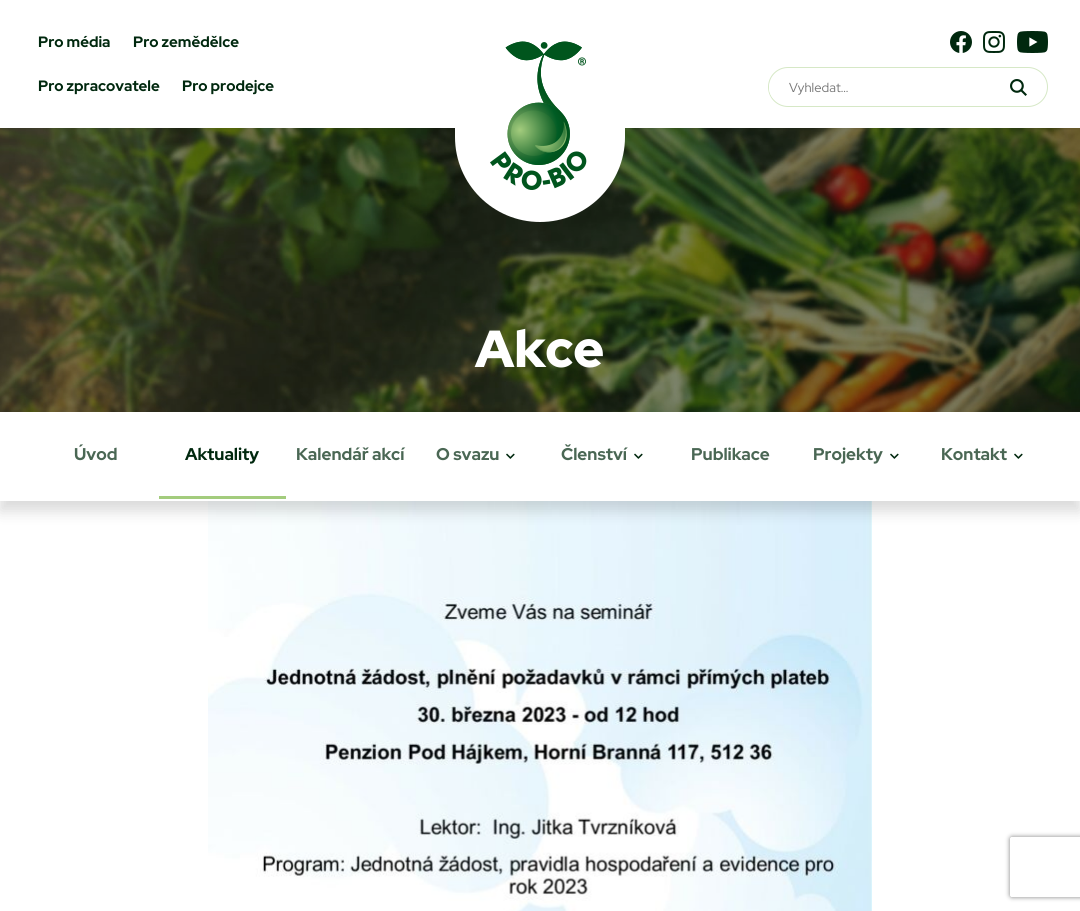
import math
import cairo

surface = cairo.ImageSurface(cairo.FORMAT_RGB24, 1080, 911)
ctx = cairo.Context(surface)
options = cairo.FontOptions()
options.set_hint_metrics(cairo.HINT_METRICS_OFF)
options.set_hint_style(cairo.HINT_STYLE_NONE)
ctx.set_font_options(options)
ctx.set_miter_limit(4)


def round_rect(x, y, w, h, r):
    ctx.new_sub_path()
    for i, (u, v) in enumerate([(x + w - r, y + h - r), (x + r, y + h - r), (x + r, y + r), (x + w - r, y + r)]):
        ctx.arc(u, v, r, i * math.pi / 2, (i + 1) * math.pi / 2)
    ctx.close_path()


def shadow(x, y, w, h, r, blur, alpha):
    ctx.push_group_with_content(cairo.CONTENT_ALPHA)
    ctx.set_operator(cairo.OPERATOR_SOURCE)
    for i in range(15, -16, -2):
        e = blur * i / 6
        if min(w, h) + 2 * e > 0:
            ctx.set_source_rgba(0, 0, 0, alpha * math.erfc((i - 1) / 8.5) / 2)
            round_rect(x - e, y - e, w + 2 * e, h + 2 * e, max(0, min(r + e + blur * .6, min(w, h) / 2 + e)))
            ctx.fill()
    ctx.mask(ctx.pop_group())


def picture(path, x, y, w, h):
    ctx.save()
    ctx.set_source_surface(cairo.ImageSurface.create_from_png(path), x, y)
    ctx.rectangle(x, y, w, h)
    ctx.fill()
    ctx.restore()


ctx.set_source_rgb(1, 1, 1)
ctx.paint()
ctx.select_font_face("Red Hat Display", cairo.FONT_SLANT_NORMAL, cairo.FONT_WEIGHT_BOLD)
ctx.set_font_size(15)
ctx.set_source_rgb(0, 0.157, 0.055)
ctx.move_to(38, 47)
ctx.show_text("Pro média")
ctx.move_to(133, 47)
ctx.show_text("Pro zemědělce")
ctx.move_to(38, 91)
ctx.show_text("Pro zpracovatele")
ctx.move_to(182, 91)
ctx.show_text("Pro prodejce")
picture("img6.png", 0, 128, 1080, 284)
picture("img1.png", 455, 41, 170, 181)
picture("img2.png", 950, 31, 22, 22)
picture("img3.png", 983, 31, 22, 22)
picture("img4.png", 1017, 31, 31, 22)
round_rect(768.5, 67.5, 279, 39, 19.5)
ctx.set_source_rgb(0.839, 0.91, 0.776)
ctx.set_line_width(1)
ctx.stroke()
ctx.set_source_rgb(1, 1, 1)
round_rect(769, 73, 222, 30, 15)
ctx.fill()
ctx.select_font_face("Red Hat Display")
ctx.set_font_size(13)
ctx.set_source_rgb(0.459, 0.459, 0.459)
ctx.move_to(789, 92)
ctx.show_text("Vyhledat...")
picture("img5.png", 1010, 79, 17, 17)
ctx.select_font_face("Red Hat Display Black")
ctx.set_font_size(52)
ctx.set_source_rgb(1, 1, 1)
ctx.move_to(475, 367)
ctx.show_text("Akce")
picture("img8.png", 208, 501, 664, 410)
ctx.set_source_rgb(0, 0, 0)
shadow(0, 422, 1080, 89, 0, 7.5, 0.15)
ctx.set_source_rgb(1, 1, 1)
ctx.rectangle(0, 412, 1080, 89)
ctx.fill()
ctx.select_font_face("Red Hat Display", cairo.FONT_SLANT_NORMAL, cairo.FONT_WEIGHT_BOLD)
ctx.set_font_size(17)
ctx.set_source_rgb(0.29, 0.404, 0.329)
ctx.move_to(74, 460)
ctx.show_text("Úvod")
ctx.set_source_rgb(0.639, 0.8, 0.49)
ctx.rectangle(159, 496, 127, 3)
ctx.fill()
ctx.set_source_rgb(0, 0.157, 0.055)
ctx.move_to(185, 460)
ctx.show_text("Aktuality")
ctx.set_source_rgb(0.29, 0.404, 0.329)
ctx.move_to(296, 460)
ctx.show_text("Kalendář akcí")
ctx.move_to(436, 460)
ctx.show_text("O svazu")
picture("img7.png", 506, 453, 9, 6)
ctx.move_to(561, 460)
ctx.show_text("Členství")
picture("img7.png", 634, 453, 9, 6)
ctx.move_to(691, 460)
ctx.show_text("Publikace")
ctx.move_to(813, 460)
ctx.show_text("Projekty")
picture("img7.png", 890, 453, 9, 6)
ctx.move_to(941, 460)
ctx.show_text("Kontakt")
picture("img7.png", 1014, 453, 9, 6)
ctx.save()
ctx.set_fill_rule(cairo.FILL_RULE_EVEN_ODD)
ctx.new_path()
ctx.move_to(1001, 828)
ctx.line_to(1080, 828)
ctx.line_to(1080, 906)
ctx.line_to(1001, 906)
ctx.close_path()
ctx.move_to(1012, 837)
ctx.line_to(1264, 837)
ctx.curve_to(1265, 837, 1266, 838, 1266, 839)
ctx.line_to(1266, 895)
ctx.curve_to(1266, 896, 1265, 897, 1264, 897)
ctx.line_to(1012, 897)
ctx.curve_to(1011, 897, 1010, 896, 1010, 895)
ctx.line_to(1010, 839)
ctx.curve_to(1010, 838, 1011, 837, 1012, 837)
ctx.close_path()
ctx.clip()
ctx.set_source_rgb(0.502, 0.502, 0.502)
shadow(1010, 837, 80, 60, 2, 2.5, 1)
ctx.restore()
surface.write_to_png("page.png")
